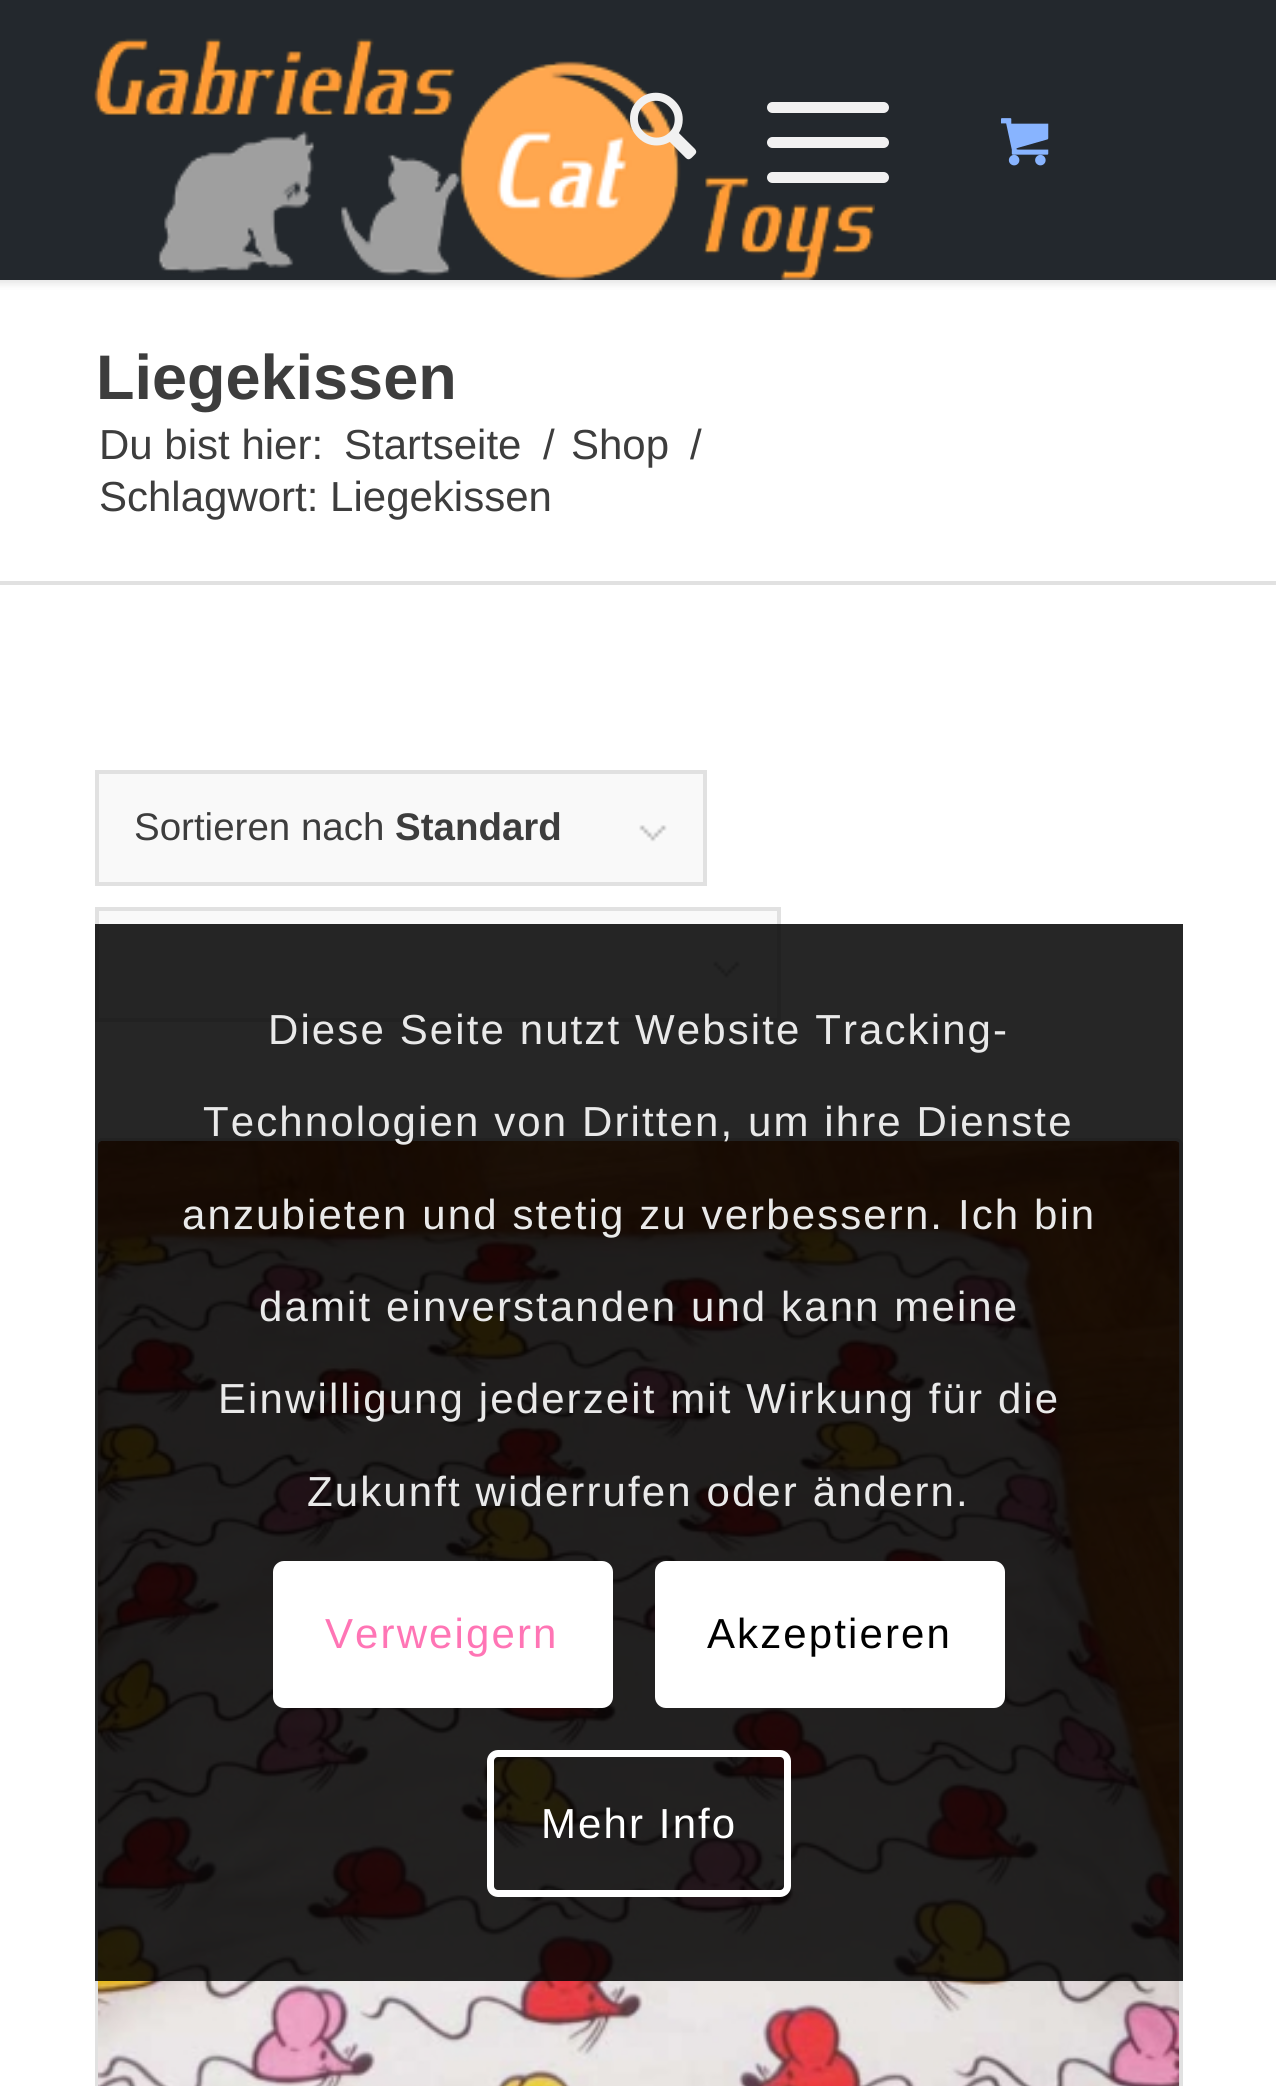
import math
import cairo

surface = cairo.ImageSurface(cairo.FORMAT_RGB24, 1276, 2086)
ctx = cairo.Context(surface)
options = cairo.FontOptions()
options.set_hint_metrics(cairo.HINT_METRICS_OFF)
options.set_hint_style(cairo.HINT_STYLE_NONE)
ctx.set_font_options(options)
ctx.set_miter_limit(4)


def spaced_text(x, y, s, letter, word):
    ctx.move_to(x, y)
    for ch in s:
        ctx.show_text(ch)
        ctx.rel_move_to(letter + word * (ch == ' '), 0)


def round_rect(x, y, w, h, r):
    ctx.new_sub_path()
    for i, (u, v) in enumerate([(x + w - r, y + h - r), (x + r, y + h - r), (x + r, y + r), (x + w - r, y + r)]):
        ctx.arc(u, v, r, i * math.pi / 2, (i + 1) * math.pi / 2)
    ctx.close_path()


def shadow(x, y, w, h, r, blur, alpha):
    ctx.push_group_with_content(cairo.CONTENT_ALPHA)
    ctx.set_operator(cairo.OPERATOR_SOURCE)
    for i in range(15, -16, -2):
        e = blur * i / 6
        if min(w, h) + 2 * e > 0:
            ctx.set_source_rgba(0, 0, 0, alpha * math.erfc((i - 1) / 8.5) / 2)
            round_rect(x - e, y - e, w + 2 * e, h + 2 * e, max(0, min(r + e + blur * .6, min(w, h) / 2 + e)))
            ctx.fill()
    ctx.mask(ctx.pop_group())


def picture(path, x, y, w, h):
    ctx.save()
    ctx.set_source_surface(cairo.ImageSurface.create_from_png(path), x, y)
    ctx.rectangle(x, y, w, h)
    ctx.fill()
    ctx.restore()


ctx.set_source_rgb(1, 1, 1)
ctx.paint()
ctx.set_source_rgb(0, 0, 0)
shadow(-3, -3, 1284, 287, 0, 3.5, 0.1)
ctx.set_source_rgb(0.137, 0.157, 0.176)
ctx.rectangle(0, 0, 1276, 280)
ctx.fill()
picture("img1.png", 94, 38, 781, 242)
picture("img2.png", 630, 92, 67, 68)
ctx.set_source_rgb(0.945, 0.945, 0.945)
round_rect(767, 137, 122, 11, 5.5)
ctx.fill()
round_rect(767, 102, 122, 11, 5.5)
ctx.fill()
round_rect(767, 172, 122, 11, 5.5)
ctx.fill()
picture("img3.png", 1001, 118, 48, 48)
ctx.select_font_face("Liberation Sans", cairo.FONT_SLANT_NORMAL, cairo.FONT_WEIGHT_BOLD)
ctx.set_font_size(63)
ctx.set_source_rgb(0.239, 0.239, 0.239)
ctx.move_to(96, 399)
ctx.show_text("Liegekissen")
ctx.select_font_face("Liberation Sans")
ctx.set_font_size(42)
ctx.move_to(99, 459)
ctx.show_text("Du bist hier:")
ctx.move_to(344, 459)
ctx.show_text("Startseite")
ctx.move_to(543, 459)
ctx.show_text("/")
ctx.move_to(571, 459)
ctx.show_text("Shop")
ctx.move_to(690, 459)
ctx.show_text("/")
ctx.move_to(99, 511)
ctx.show_text("Schlagwort: Liegekissen")
ctx.set_source_rgb(0.882, 0.882, 0.882)
ctx.rectangle(0, 581, 1276, 4)
ctx.fill()
ctx.set_source_rgb(0.973, 0.973, 0.973)
ctx.rectangle(99, 774, 604, 108)
ctx.fill()
picture("img4.png", 639, 825, 28, 17)
ctx.rectangle(97, 772, 608, 112)
ctx.set_source_rgb(0.882, 0.882, 0.882)
ctx.set_line_width(4)
ctx.stroke()
ctx.set_font_size(38.5)
ctx.set_source_rgb(0.239, 0.239, 0.239)
ctx.move_to(134, 840)
ctx.show_text("Sortieren nach")
ctx.select_font_face("Liberation Sans", cairo.FONT_SLANT_NORMAL, cairo.FONT_WEIGHT_BOLD)
ctx.move_to(395, 840)
ctx.show_text("Standard")
ctx.set_source_rgb(0.973, 0.973, 0.973)
ctx.rectangle(99, 911, 678, 107)
ctx.fill()
picture("img5.png", 713, 961, 27, 17)
ctx.rectangle(97, 909, 682, 111)
ctx.set_source_rgb(0.882, 0.882, 0.882)
ctx.stroke()
round_rect(97, 1140, 1084, 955, 5)
ctx.stroke()
picture("img6.png", 98, 1141, 1082, 945)
ctx.set_source_rgba(0, 0, 0, 0.85)
ctx.rectangle(95, 924, 1088, 1057)
ctx.fill()
ctx.select_font_face("Liberation Sans")
ctx.set_font_size(42)
ctx.set_source_rgb(0.914, 0.914, 0.914)
spaced_text(268, 1044, "Diese Seite nutzt Website Tracking-", 2.1, 0)
spaced_text(203, 1136, "Technologien von Dritten, um ihre Dienste", 2.1, 0)
spaced_text(182, 1229, "anzubieten und stetig zu verbessern. Ich bin", 2.1, 0)
spaced_text(259, 1321, "damit einverstanden und kann meine", 2.1, 0)
spaced_text(218, 1413, "Einwilligung jederzeit mit Wirkung für die", 2.1, 0)
spaced_text(307, 1506, "Zukunft widerrufen oder ändern.", 2.1, 0)
ctx.set_source_rgb(1, 1, 1)
round_rect(276.5, 1564.5, 333, 140, 7.5)
ctx.fill_preserve()
ctx.set_line_width(7)
ctx.stroke()
ctx.set_source_rgb(1, 0.459, 0.71)
spaced_text(325, 1648, "Verweigern", 2.1, 0)
ctx.set_source_rgb(1, 1, 1)
round_rect(655, 1561, 350, 147, 11)
ctx.fill()
ctx.set_source_rgb(0, 0, 0)
spaced_text(707, 1648, "Akzeptieren", 2.1, 0)
round_rect(490.5, 1753.5, 297, 140, 7.5)
ctx.set_source_rgb(1, 1, 1)
ctx.stroke()
spaced_text(541, 1838, "Mehr Info", 2.1, 0)
surface.write_to_png("page.png")
